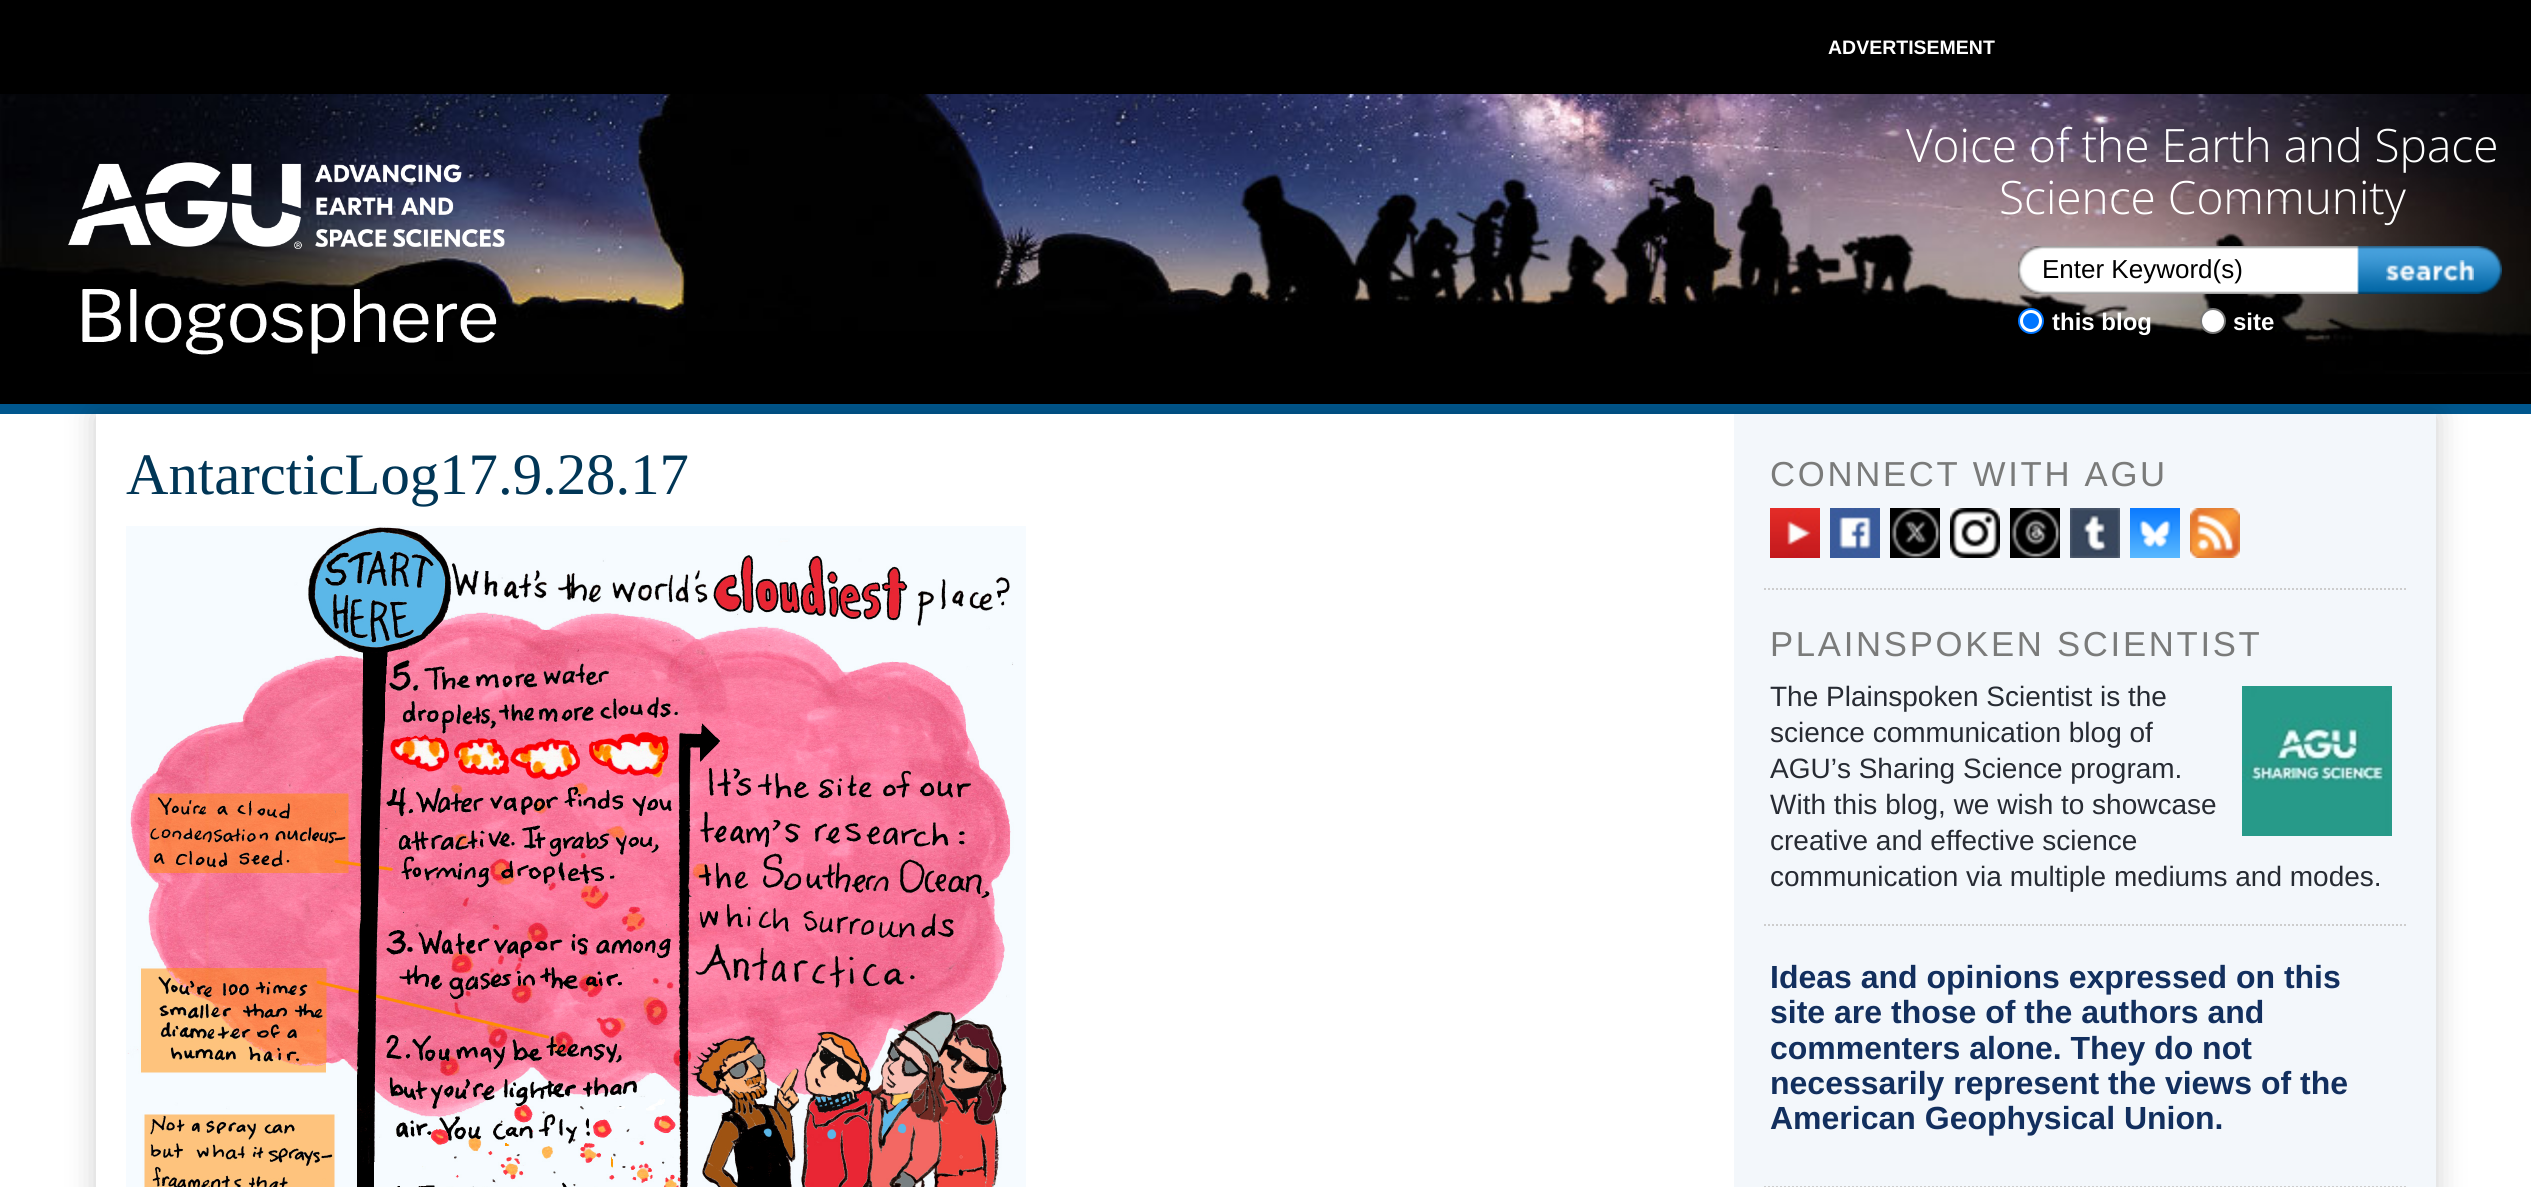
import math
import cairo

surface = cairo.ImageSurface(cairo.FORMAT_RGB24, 2531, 1187)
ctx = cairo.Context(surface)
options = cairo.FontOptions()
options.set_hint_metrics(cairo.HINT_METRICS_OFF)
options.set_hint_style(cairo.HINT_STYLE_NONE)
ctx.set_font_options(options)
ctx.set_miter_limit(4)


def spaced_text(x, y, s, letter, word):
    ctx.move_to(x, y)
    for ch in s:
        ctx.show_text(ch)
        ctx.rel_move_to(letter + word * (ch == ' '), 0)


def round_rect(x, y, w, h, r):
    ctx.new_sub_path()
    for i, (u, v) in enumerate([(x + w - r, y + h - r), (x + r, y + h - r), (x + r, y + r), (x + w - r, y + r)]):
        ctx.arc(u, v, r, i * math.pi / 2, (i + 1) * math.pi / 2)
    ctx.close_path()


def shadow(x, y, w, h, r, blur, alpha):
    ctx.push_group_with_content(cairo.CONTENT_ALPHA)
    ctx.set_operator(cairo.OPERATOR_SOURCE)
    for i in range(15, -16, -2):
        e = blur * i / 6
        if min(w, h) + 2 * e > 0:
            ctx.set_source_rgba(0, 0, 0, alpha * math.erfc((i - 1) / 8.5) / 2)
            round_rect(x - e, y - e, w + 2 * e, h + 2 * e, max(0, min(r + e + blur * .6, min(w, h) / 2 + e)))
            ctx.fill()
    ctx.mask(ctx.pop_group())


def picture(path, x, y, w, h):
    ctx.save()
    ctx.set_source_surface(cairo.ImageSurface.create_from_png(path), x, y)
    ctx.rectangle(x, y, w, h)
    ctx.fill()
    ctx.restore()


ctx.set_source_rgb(0, 0, 0)
ctx.paint()
ctx.select_font_face("Liberation Sans", cairo.FONT_SLANT_NORMAL, cairo.FONT_WEIGHT_BOLD)
ctx.set_font_size(19.5)
ctx.set_source_rgb(1, 1, 1)
ctx.move_to(1828, 54)
ctx.show_text("ADVERTISEMENT")
ctx.set_source_rgb(0, 0.341, 0.557)
ctx.rectangle(0, 404, 2531, 10)
ctx.fill()
picture("img1.png", 0, 94, 2531, 280)
picture("img2.png", 68, 162, 437, 193)
ctx.select_font_face("Open Sans Light")
ctx.set_font_size(46)
ctx.set_source_rgb(1, 1, 1)
ctx.move_to(1906, 162)
ctx.show_text("Voice of the Earth and Space")
ctx.move_to(1999, 214)
ctx.show_text("Science Community")
picture("img3.png", 2018, 246, 484, 48)
ctx.select_font_face("Liberation Sans")
ctx.set_font_size(26)
ctx.set_source_rgb(0, 0, 0)
ctx.move_to(2042, 278)
ctx.show_text("Enter Keyword(s)")
picture("img4.png", 2386, 260, 88, 22)
ctx.set_source_rgb(1, 1, 1)
ctx.arc(2031, 321, 12, 0, 2 * math.pi)
ctx.fill_preserve()
ctx.set_source_rgb(0, 0.459, 1)
ctx.stroke()
ctx.arc(2031, 321, 8, 0, 2 * math.pi)
ctx.fill()
ctx.select_font_face("Liberation Sans", cairo.FONT_SLANT_NORMAL, cairo.FONT_WEIGHT_BOLD)
ctx.set_font_size(24)
ctx.set_source_rgb(1, 1, 1)
ctx.move_to(2052, 330)
ctx.show_text("this blog")
ctx.new_path()
ctx.arc(2213, 321, 12, 0, 2 * math.pi)
ctx.fill_preserve()
ctx.set_source_rgb(0.463, 0.463, 0.463)
ctx.stroke()
ctx.set_source_rgb(1, 1, 1)
ctx.move_to(2233, 330)
ctx.show_text("site")
ctx.rectangle(0, 414, 2531, 773)
ctx.fill()
ctx.save()
ctx.set_fill_rule(cairo.FILL_RULE_EVEN_ODD)
ctx.new_path()
ctx.move_to(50, 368)
ctx.line_to(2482, 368)
ctx.line_to(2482, 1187)
ctx.line_to(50, 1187)
ctx.close_path()
ctx.move_to(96, 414)
ctx.line_to(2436, 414)
ctx.line_to(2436, 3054)
ctx.line_to(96, 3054)
ctx.close_path()
ctx.clip()
ctx.set_source_rgb(0, 0, 0)
shadow(96, 414, 2340, 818, 0, 15, 0.2)
ctx.restore()
ctx.select_font_face("Liberation Serif")
ctx.set_font_size(58.75)
ctx.set_source_rgb(0.004, 0.212, 0.337)
ctx.move_to(126, 494)
ctx.show_text("AntarcticLog17.9.28.17")
picture("img5.png", 126, 526, 900, 661)
ctx.set_source_rgb(0.953, 0.965, 0.984)
ctx.rectangle(1734, 414, 702, 773)
ctx.fill()
ctx.new_path()
ctx.move_to(1764, 589)
ctx.line_to(2406, 589)
ctx.set_source_rgb(0.804, 0.804, 0.804)
ctx.set_dash([2, 2])
ctx.stroke()
ctx.select_font_face("Liberation Sans")
ctx.set_font_size(34.7)
ctx.set_source_rgb(0.478, 0.482, 0.478)
spaced_text(1770, 486, "CONNECT WITH AGU", 2.7, 0)
picture("img6.png", 1770, 508, 50, 50)
picture("img7.png", 1830, 508, 50, 50)
picture("img8.png", 1890, 508, 50, 50)
picture("img9.png", 1950, 508, 50, 50)
picture("img10.png", 2010, 508, 50, 50)
picture("img11.png", 2070, 508, 50, 50)
picture("img12.png", 2130, 508, 50, 50)
picture("img13.png", 2190, 508, 50, 50)
ctx.new_path()
ctx.move_to(1764, 925)
ctx.line_to(2406, 925)
ctx.set_source_rgb(0.804, 0.804, 0.804)
ctx.stroke()
ctx.set_source_rgb(0.478, 0.482, 0.478)
spaced_text(1770, 656, "PLAINSPOKEN SCIENTIST", 2.7, 0)
ctx.set_font_size(28)
ctx.set_source_rgb(0.153, 0.169, 0.2)
ctx.move_to(1770, 706)
ctx.show_text("The Plainspoken Scientist is the")
picture("img14.png", 2242, 686, 150, 150)
ctx.move_to(1770, 742)
ctx.show_text("science communication blog of")
ctx.move_to(1770, 778)
ctx.show_text("AGU’s Sharing Science program.")
ctx.move_to(1770, 814)
ctx.show_text("With this blog, we wish to showcase")
ctx.move_to(1770, 850)
ctx.show_text("creative and effective science")
ctx.move_to(1770, 886)
ctx.show_text("communication via multiple mediums and modes.")
ctx.new_path()
ctx.move_to(1764, 1187)
ctx.line_to(2406, 1187)
ctx.set_source_rgb(0.804, 0.804, 0.804)
ctx.stroke()
ctx.select_font_face("Liberation Sans", cairo.FONT_SLANT_NORMAL, cairo.FONT_WEIGHT_BOLD)
ctx.set_font_size(32)
ctx.set_source_rgb(0.071, 0.184, 0.369)
ctx.move_to(1770, 988)
ctx.show_text("Ideas and opinions expressed on this")
ctx.move_to(1770, 1023)
ctx.show_text("site are those of the authors and")
ctx.move_to(1770, 1059)
ctx.show_text("commenters alone. They do not")
ctx.move_to(1770, 1094)
ctx.show_text("necessarily represent the views of the")
ctx.move_to(1770, 1129)
ctx.show_text("American Geophysical Union.")
surface.write_to_png("page.png")
